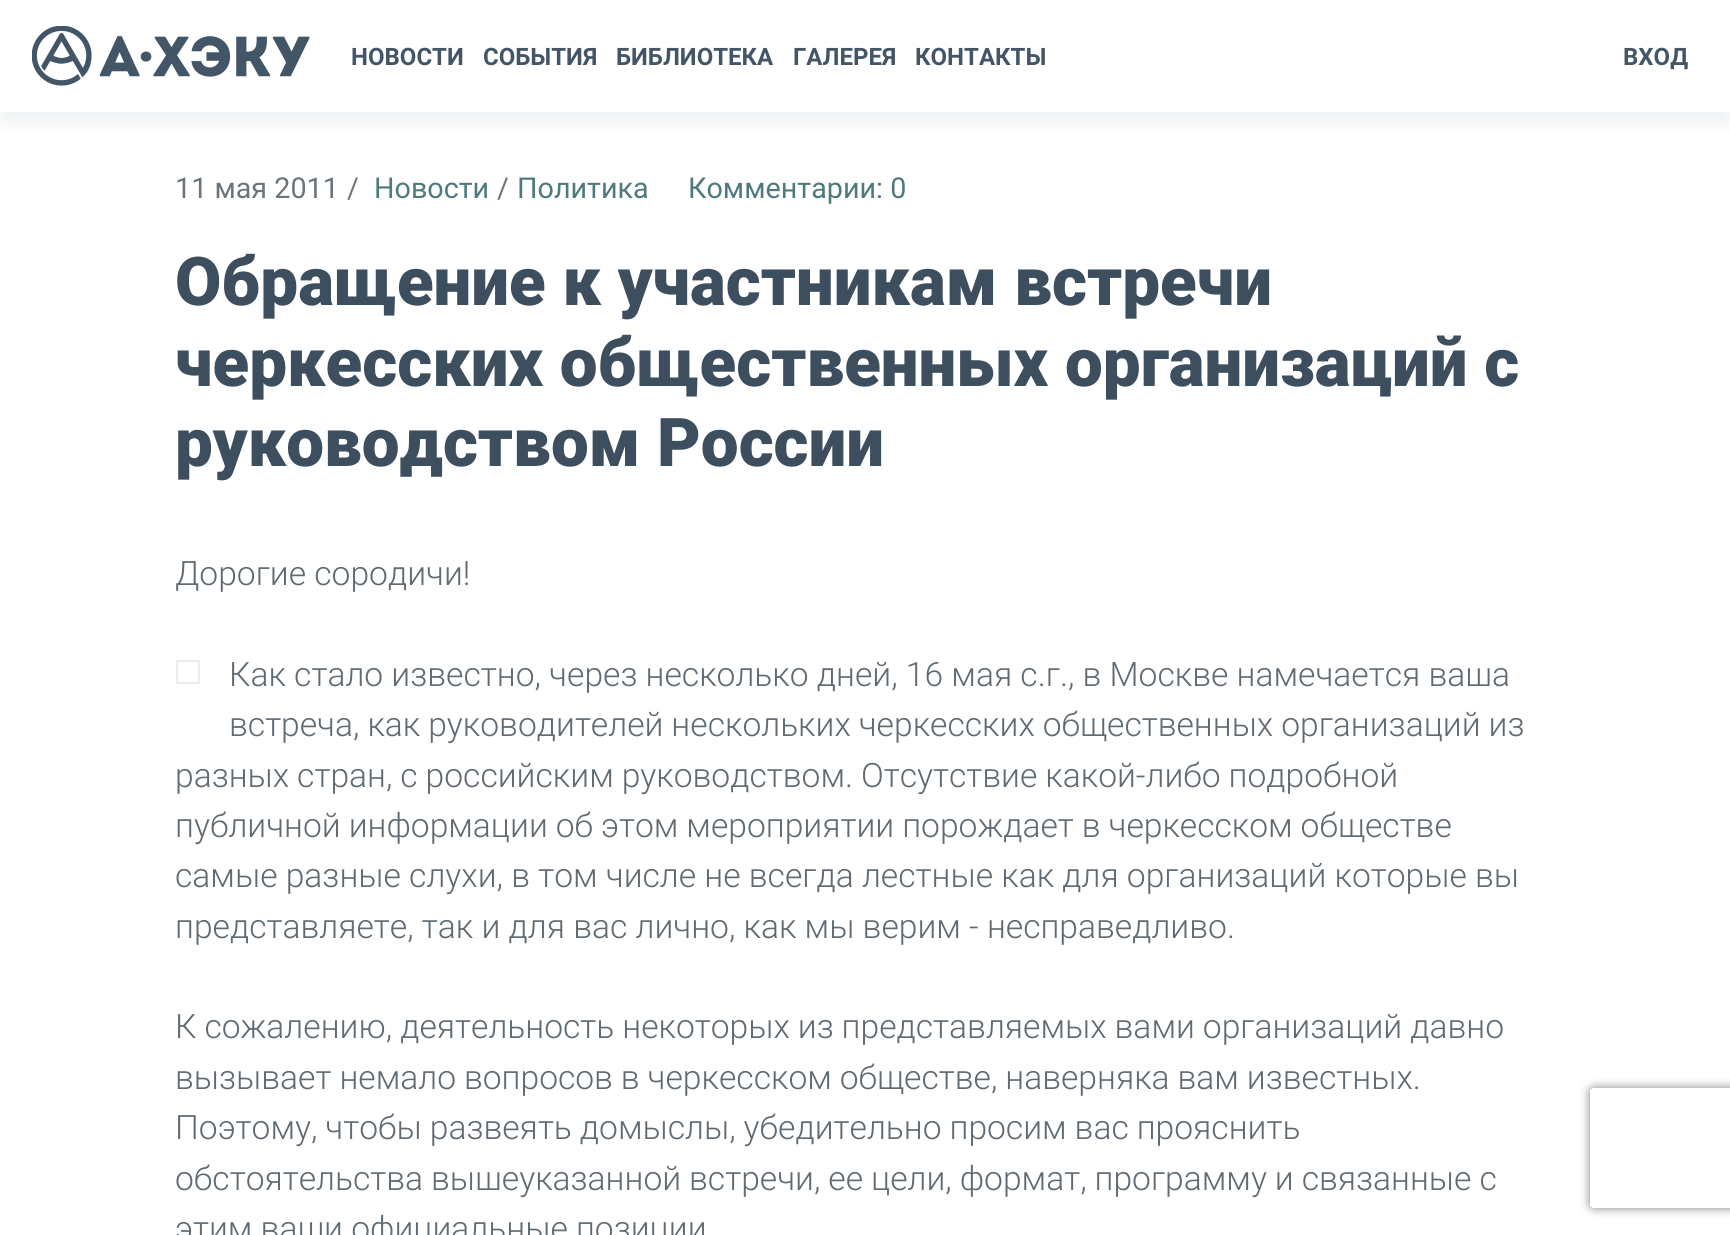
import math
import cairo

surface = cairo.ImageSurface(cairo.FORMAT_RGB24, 1730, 1235)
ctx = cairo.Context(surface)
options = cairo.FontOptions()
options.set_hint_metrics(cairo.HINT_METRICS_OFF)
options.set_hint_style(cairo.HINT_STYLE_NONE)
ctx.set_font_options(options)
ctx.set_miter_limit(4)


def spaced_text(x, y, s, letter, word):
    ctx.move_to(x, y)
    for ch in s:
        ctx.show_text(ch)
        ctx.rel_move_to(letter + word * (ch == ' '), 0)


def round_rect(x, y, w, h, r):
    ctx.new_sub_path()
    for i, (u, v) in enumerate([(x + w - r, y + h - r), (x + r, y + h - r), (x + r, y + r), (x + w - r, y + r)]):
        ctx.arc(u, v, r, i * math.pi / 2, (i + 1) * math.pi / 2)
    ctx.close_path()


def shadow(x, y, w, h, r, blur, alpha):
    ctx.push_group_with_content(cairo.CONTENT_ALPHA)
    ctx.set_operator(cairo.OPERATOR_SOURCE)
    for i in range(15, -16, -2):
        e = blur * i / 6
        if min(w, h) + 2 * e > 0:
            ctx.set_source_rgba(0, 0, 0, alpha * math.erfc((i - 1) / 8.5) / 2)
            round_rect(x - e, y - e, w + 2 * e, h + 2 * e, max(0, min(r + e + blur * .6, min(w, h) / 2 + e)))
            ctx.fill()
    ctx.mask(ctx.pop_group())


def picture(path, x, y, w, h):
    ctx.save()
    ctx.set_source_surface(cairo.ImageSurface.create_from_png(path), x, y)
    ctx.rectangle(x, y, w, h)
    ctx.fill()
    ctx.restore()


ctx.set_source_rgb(1, 1, 1)
ctx.paint()
ctx.save()
ctx.rectangle(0, 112, 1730, 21)
ctx.clip()
ctx.set_source_rgb(0.541, 0.608, 0.647)
shadow(0, 10, 1730, 112, 0, 10, 0.15)
ctx.restore()
picture("img1.png", 32, 26, 278, 60)
ctx.select_font_face("Roboto", cairo.FONT_SLANT_NORMAL, cairo.FONT_WEIGHT_BOLD)
ctx.set_font_size(24)
ctx.set_source_rgb(0.263, 0.337, 0.404)
ctx.move_to(351, 65)
ctx.show_text("НОВОСТИ")
ctx.move_to(483, 65)
ctx.show_text("СОБЫТИЯ")
ctx.move_to(616, 65)
ctx.show_text("БИБЛИОТЕКА")
ctx.move_to(793, 65)
ctx.show_text("ГАЛЕРЕЯ")
ctx.move_to(915, 65)
ctx.show_text("КОНТАКТЫ")
ctx.move_to(1623, 65)
ctx.show_text("ВХОД")
ctx.select_font_face("Roboto")
ctx.set_font_size(28.75)
ctx.set_source_rgb(0.424, 0.459, 0.49)
ctx.move_to(175, 198)
ctx.show_text("11 мая 2011")
ctx.move_to(347, 198)
ctx.show_text("/")
ctx.set_source_rgb(0.306, 0.478, 0.494)
ctx.move_to(374, 198)
ctx.show_text("Новости")
ctx.set_source_rgb(0.424, 0.459, 0.49)
ctx.move_to(497, 198)
ctx.show_text("/")
ctx.set_source_rgb(0.306, 0.478, 0.494)
ctx.move_to(517, 198)
ctx.show_text("Политика")
ctx.move_to(688, 198)
ctx.show_text("Комментарии: 0")
ctx.select_font_face("Roboto Black")
ctx.set_font_size(67.25)
ctx.set_source_rgb(0.239, 0.306, 0.369)
ctx.move_to(175, 305)
ctx.show_text("Обращение к участникам встречи")
ctx.move_to(175, 386)
ctx.show_text("черкесских общественных организаций с")
ctx.move_to(175, 466)
ctx.show_text("руководством России")
ctx.select_font_face("Roboto Light")
ctx.set_font_size(33.6)
ctx.set_source_rgb(0.376, 0.416, 0.451)
ctx.move_to(175, 585)
ctx.show_text("Дорогие сородичи!")
ctx.rectangle(177, 661, 22, 22)
ctx.set_source_rgb(0.914, 0.925, 0.937)
ctx.stroke()
ctx.set_source_rgb(0.376, 0.416, 0.451)
ctx.move_to(229, 686)
ctx.show_text("Как стало известно, через несколько дней, 16 мая с.г., в Москве намечается ваша")
spaced_text(229, 736, "встреча, как руководителей нескольких черкесских общественных организаций из", 0, -0.25)
spaced_text(175, 787, "разных стран, с российским руководством. Отсутствие какой-либо подробной", 0, -0.25)
spaced_text(175, 837, "публичной информации об этом мероприятии порождает в черкесском обществе", 0, -0.25)
ctx.move_to(175, 887)
ctx.show_text("самые разные слухи, в том числе не всегда лестные как для организаций которые вы")
ctx.move_to(175, 938)
ctx.show_text("представляете, так и для вас лично, как мы верим - несправедливо.")
spaced_text(175, 1038, "К сожалению, деятельность некоторых из представляемых вами организаций давно", 0, -0.25)
spaced_text(175, 1089, "вызывает немало вопросов в черкесском обществе, наверняка вам известных.", 0, -0.25)
spaced_text(175, 1139, "Поэтому, чтобы развеять домыслы, убедительно просим вас прояснить", 0, -0.25)
spaced_text(175, 1190, "обстоятельства вышеуказанной встречи, ее цели, формат, программу и связанные с", 0, -0.25)
ctx.move_to(175, 1240)
ctx.show_text("этим ваши официальные позиции")
ctx.save()
ctx.set_fill_rule(cairo.FILL_RULE_EVEN_ODD)
ctx.new_path()
ctx.move_to(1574, 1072)
ctx.line_to(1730, 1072)
ctx.line_to(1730, 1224)
ctx.line_to(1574, 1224)
ctx.close_path()
ctx.move_to(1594, 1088)
ctx.line_to(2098, 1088)
ctx.curve_to(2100, 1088, 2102, 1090, 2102, 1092)
ctx.line_to(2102, 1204)
ctx.curve_to(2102, 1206, 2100, 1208, 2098, 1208)
ctx.line_to(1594, 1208)
ctx.curve_to(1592, 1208, 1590, 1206, 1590, 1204)
ctx.line_to(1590, 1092)
ctx.curve_to(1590, 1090, 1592, 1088, 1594, 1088)
ctx.close_path()
ctx.clip()
ctx.set_source_rgb(0.502, 0.502, 0.502)
shadow(1590, 1088, 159, 120, 4, 5, 1)
ctx.restore()
surface.write_to_png("page.png")
